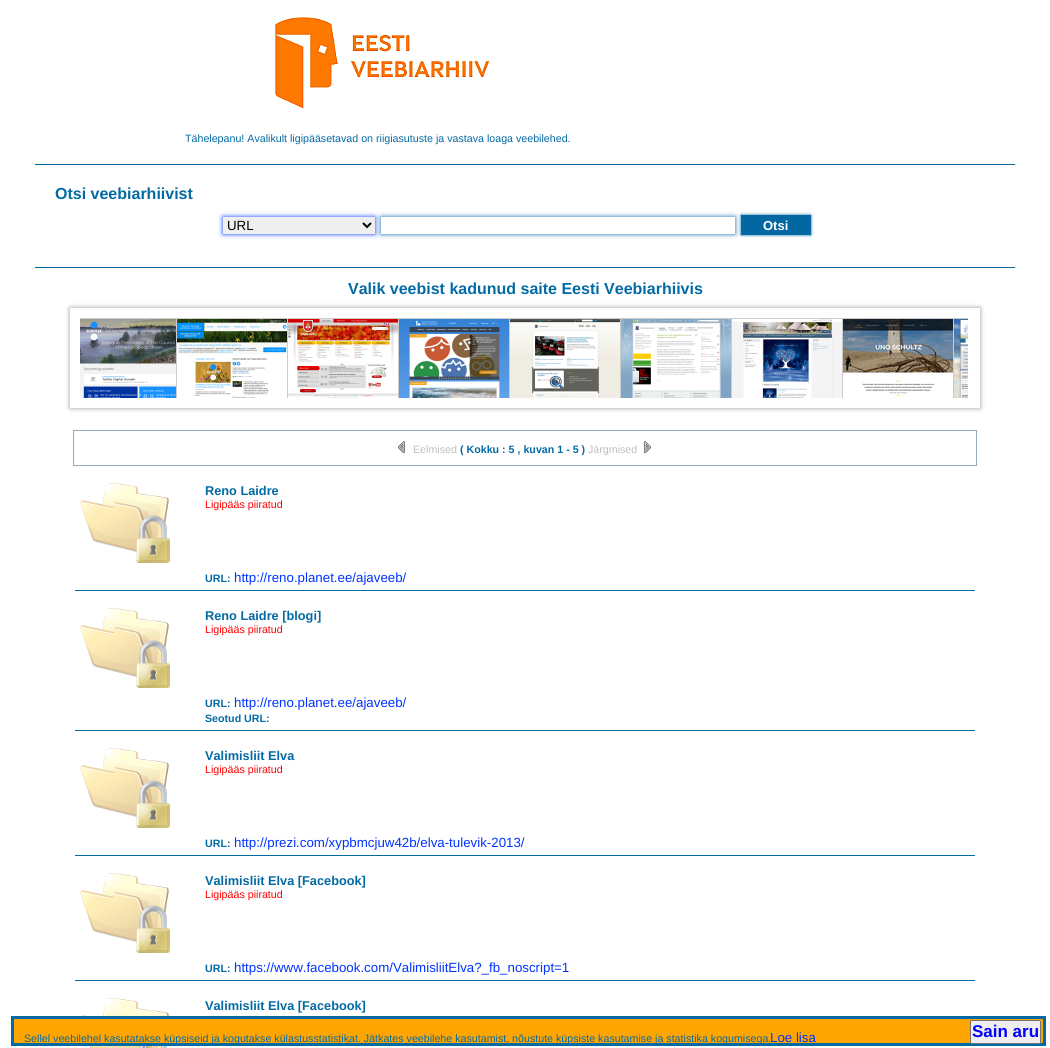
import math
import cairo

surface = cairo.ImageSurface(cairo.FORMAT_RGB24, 1050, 1048)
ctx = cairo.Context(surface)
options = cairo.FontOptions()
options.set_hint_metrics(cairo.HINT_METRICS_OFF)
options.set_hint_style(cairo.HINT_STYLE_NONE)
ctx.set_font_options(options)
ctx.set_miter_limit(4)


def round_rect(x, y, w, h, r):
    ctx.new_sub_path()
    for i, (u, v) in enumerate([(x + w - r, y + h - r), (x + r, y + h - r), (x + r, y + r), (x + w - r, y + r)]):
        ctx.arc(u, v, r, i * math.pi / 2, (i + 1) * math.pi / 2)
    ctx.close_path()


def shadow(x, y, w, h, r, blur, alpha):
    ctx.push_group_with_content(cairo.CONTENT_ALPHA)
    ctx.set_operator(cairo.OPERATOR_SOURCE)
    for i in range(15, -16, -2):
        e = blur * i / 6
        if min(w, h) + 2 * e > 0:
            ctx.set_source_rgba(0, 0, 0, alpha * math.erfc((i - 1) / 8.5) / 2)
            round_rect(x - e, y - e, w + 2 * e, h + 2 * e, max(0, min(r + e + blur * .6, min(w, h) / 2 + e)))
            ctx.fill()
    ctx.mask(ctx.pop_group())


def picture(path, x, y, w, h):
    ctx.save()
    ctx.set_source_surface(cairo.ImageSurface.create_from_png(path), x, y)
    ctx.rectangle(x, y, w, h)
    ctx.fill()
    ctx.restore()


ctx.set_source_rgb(1, 1, 1)
ctx.paint()
picture("img1.png", 275, 17, 214, 92)
ctx.select_font_face("Liberation Sans")
ctx.set_font_size(10.67)
ctx.set_source_rgb(0.012, 0.416, 0.643)
ctx.move_to(185, 142)
ctx.show_text("Tähelepanu! Avalikult ligipääsetavad on riigiasutuste ja vastava loaga veebilehed.")
ctx.set_source_rgb(0.012, 0.404, 0.631)
ctx.rectangle(35, 164, 980, 1)
ctx.fill()
ctx.rectangle(35, 267, 980, 1)
ctx.fill()
ctx.select_font_face("Liberation Sans", cairo.FONT_SLANT_NORMAL, cairo.FONT_WEIGHT_BOLD)
ctx.set_font_size(16)
ctx.set_source_rgb(0.012, 0.416, 0.643)
ctx.move_to(55, 199)
ctx.show_text("Otsi veebiarhiivist")
ctx.set_source_rgb(0, 0.188, 1)
shadow(223, 217, 152, 17, 0, 2.5, 1)
ctx.set_source_rgb(0.937, 0.937, 0.937)
ctx.rectangle(223, 217, 152, 17)
ctx.fill()
ctx.new_path()
ctx.move_to(363, 223)
ctx.line_to(367, 227)
ctx.line_to(371, 223)
ctx.set_source_rgb(0, 0, 0)
ctx.stroke()
ctx.select_font_face("Liberation Sans")
ctx.set_font_size(13.3)
ctx.move_to(227, 230)
ctx.show_text("URL")
ctx.save()
ctx.set_fill_rule(cairo.FILL_RULE_EVEN_ODD)
ctx.new_path()
ctx.move_to(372, 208)
ctx.line_to(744, 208)
ctx.line_to(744, 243)
ctx.line_to(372, 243)
ctx.close_path()
ctx.move_to(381, 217)
ctx.line_to(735, 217)
ctx.line_to(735, 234)
ctx.line_to(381, 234)
ctx.close_path()
ctx.clip()
ctx.set_source_rgb(0.012, 0.404, 0.631)
shadow(381, 217, 354, 17, 0, 2.5, 1)
ctx.restore()
ctx.set_source_rgb(0.012, 0.404, 0.631)
shadow(741, 215, 70, 20, 0, 1.5, 1)
ctx.set_source_rgb(0.012, 0.404, 0.631)
ctx.rectangle(741, 215, 70, 20)
ctx.fill()
ctx.select_font_face("Liberation Sans", cairo.FONT_SLANT_NORMAL, cairo.FONT_WEIGHT_BOLD)
ctx.set_font_size(13)
ctx.set_source_rgb(1, 1, 1)
ctx.move_to(763, 230)
ctx.show_text("Otsi")
ctx.set_font_size(16)
ctx.set_source_rgb(0.012, 0.416, 0.643)
ctx.move_to(348, 294)
ctx.show_text("Valik veebist kadunud saite Eesti Veebiarhiivis")
ctx.save()
ctx.set_fill_rule(cairo.FILL_RULE_EVEN_ODD)
ctx.new_path()
ctx.move_to(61, 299)
ctx.line_to(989, 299)
ctx.line_to(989, 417)
ctx.line_to(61, 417)
ctx.close_path()
ctx.move_to(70, 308)
ctx.line_to(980, 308)
ctx.line_to(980, 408)
ctx.line_to(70, 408)
ctx.close_path()
ctx.clip()
ctx.set_source_rgb(0.6, 0.6, 0.6)
shadow(70, 308, 910, 100, 0, 2.5, 1)
ctx.restore()
ctx.save()
ctx.rectangle(80, 318, 888, 80)
ctx.clip()
ctx.rectangle(65.5, 318.5, 112, 81)
ctx.set_source_rgb(0.8, 0.8, 0.8)
ctx.set_line_width(1)
ctx.stroke()
ctx.restore()
picture("img2.png", 80, 319, 96, 79)
ctx.save()
ctx.rectangle(80, 318, 888, 80)
ctx.clip()
ctx.rectangle(176.5, 318.5, 112, 81)
ctx.set_source_rgb(0.8, 0.8, 0.8)
ctx.set_line_width(1)
ctx.stroke()
ctx.restore()
picture("img3.png", 177, 319, 110, 79)
ctx.save()
ctx.rectangle(80, 318, 888, 80)
ctx.clip()
ctx.rectangle(287.5, 318.5, 112, 81)
ctx.set_source_rgb(0.8, 0.8, 0.8)
ctx.set_line_width(1)
ctx.stroke()
ctx.restore()
picture("img4.png", 288, 319, 110, 79)
ctx.save()
ctx.rectangle(80, 318, 888, 80)
ctx.clip()
ctx.rectangle(398.5, 318.5, 112, 81)
ctx.set_source_rgb(0.8, 0.8, 0.8)
ctx.set_line_width(1)
ctx.stroke()
ctx.restore()
picture("img5.png", 399, 319, 110, 79)
ctx.save()
ctx.rectangle(80, 318, 888, 80)
ctx.clip()
ctx.rectangle(509.5, 318.5, 112, 81)
ctx.set_source_rgb(0.8, 0.8, 0.8)
ctx.set_line_width(1)
ctx.stroke()
ctx.restore()
picture("img6.png", 510, 319, 110, 79)
ctx.save()
ctx.rectangle(80, 318, 888, 80)
ctx.clip()
ctx.rectangle(620.5, 318.5, 112, 81)
ctx.set_source_rgb(0.8, 0.8, 0.8)
ctx.set_line_width(1)
ctx.stroke()
ctx.restore()
picture("img7.png", 621, 319, 110, 79)
ctx.save()
ctx.rectangle(80, 318, 888, 80)
ctx.clip()
ctx.rectangle(731.5, 318.5, 112, 81)
ctx.set_source_rgb(0.8, 0.8, 0.8)
ctx.set_line_width(1)
ctx.stroke()
ctx.restore()
picture("img8.png", 732, 319, 110, 79)
ctx.set_source_rgb(1, 1, 1)
ctx.rectangle(843, 396, 1, 2)
ctx.fill()
ctx.save()
ctx.rectangle(80, 318, 888, 80)
ctx.clip()
ctx.rectangle(842.5, 318.5, 112, 81)
ctx.set_source_rgb(0.8, 0.8, 0.8)
ctx.set_line_width(1)
ctx.stroke()
ctx.restore()
picture("img9.png", 843, 319, 110, 77)
ctx.save()
ctx.rectangle(80, 318, 888, 80)
ctx.clip()
ctx.rectangle(953.5, 318.5, 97, 81)
ctx.set_source_rgb(0.8, 0.8, 0.8)
ctx.set_line_width(1)
ctx.stroke()
ctx.restore()
picture("img10.png", 954, 319, 14, 79)
ctx.rectangle(73.5, 430.5, 903, 35)
ctx.set_source_rgb(0.592, 0.663, 0.722)
ctx.set_line_width(1)
ctx.stroke()
picture("img11.png", 398, 441, 7, 12)
ctx.select_font_face("Liberation Sans")
ctx.set_font_size(10.67)
ctx.set_source_rgb(0.749, 0.749, 0.749)
ctx.move_to(413, 453)
ctx.show_text("Eelmised")
ctx.select_font_face("Liberation Sans", cairo.FONT_SLANT_NORMAL, cairo.FONT_WEIGHT_BOLD)
ctx.set_source_rgb(0.012, 0.416, 0.643)
ctx.move_to(460, 453)
ctx.show_text("( Kokku : 5 , kuvan 1 - 5 )")
ctx.select_font_face("Liberation Sans")
ctx.set_source_rgb(0.749, 0.749, 0.749)
ctx.move_to(588, 453)
ctx.show_text("Järgmised")
picture("img12.png", 644, 441, 7, 12)
picture("img13.png", 80, 483, 90, 80)
ctx.set_source_rgb(0.012, 0.416, 0.643)
ctx.rectangle(75, 590, 900, 1)
ctx.fill()
ctx.select_font_face("Liberation Sans", cairo.FONT_SLANT_NORMAL, cairo.FONT_WEIGHT_BOLD)
ctx.set_font_size(12.75)
ctx.move_to(205, 495)
ctx.show_text("Reno Laidre")
ctx.select_font_face("Liberation Sans")
ctx.set_font_size(10.67)
ctx.set_source_rgb(1, 0, 0)
ctx.move_to(205, 508)
ctx.show_text("Ligipääs piiratud")
ctx.select_font_face("Liberation Sans", cairo.FONT_SLANT_NORMAL, cairo.FONT_WEIGHT_BOLD)
ctx.set_source_rgb(0.012, 0.416, 0.643)
ctx.move_to(205, 582)
ctx.show_text("URL:")
ctx.select_font_face("Liberation Sans")
ctx.set_font_size(13.3)
ctx.set_source_rgb(0, 0.2, 1)
ctx.move_to(234, 582)
ctx.show_text("http://reno.planet.ee/ajaveeb/")
picture("img13.png", 80, 608, 90, 80)
ctx.set_source_rgb(0.012, 0.416, 0.643)
ctx.rectangle(75, 730, 900, 1)
ctx.fill()
ctx.select_font_face("Liberation Sans", cairo.FONT_SLANT_NORMAL, cairo.FONT_WEIGHT_BOLD)
ctx.set_font_size(12.75)
ctx.move_to(205, 620)
ctx.show_text("Reno Laidre [blogi]")
ctx.select_font_face("Liberation Sans")
ctx.set_font_size(10.67)
ctx.set_source_rgb(1, 0, 0)
ctx.move_to(205, 633)
ctx.show_text("Ligipääs piiratud")
ctx.select_font_face("Liberation Sans", cairo.FONT_SLANT_NORMAL, cairo.FONT_WEIGHT_BOLD)
ctx.set_source_rgb(0.012, 0.416, 0.643)
ctx.move_to(205, 707)
ctx.show_text("URL:")
ctx.select_font_face("Liberation Sans")
ctx.set_font_size(13.3)
ctx.set_source_rgb(0, 0.2, 1)
ctx.move_to(234, 707)
ctx.show_text("http://reno.planet.ee/ajaveeb/")
ctx.select_font_face("Liberation Sans", cairo.FONT_SLANT_NORMAL, cairo.FONT_WEIGHT_BOLD)
ctx.set_font_size(10.67)
ctx.set_source_rgb(0.012, 0.416, 0.643)
ctx.move_to(205, 722)
ctx.show_text("Seotud URL:")
picture("img13.png", 80, 748, 90, 80)
ctx.rectangle(75, 855, 900, 1)
ctx.fill()
ctx.set_font_size(12.75)
ctx.move_to(205, 760)
ctx.show_text("Valimisliit Elva")
ctx.select_font_face("Liberation Sans")
ctx.set_font_size(10.67)
ctx.set_source_rgb(1, 0, 0)
ctx.move_to(205, 773)
ctx.show_text("Ligipääs piiratud")
ctx.select_font_face("Liberation Sans", cairo.FONT_SLANT_NORMAL, cairo.FONT_WEIGHT_BOLD)
ctx.set_source_rgb(0.012, 0.416, 0.643)
ctx.move_to(205, 847)
ctx.show_text("URL:")
ctx.select_font_face("Liberation Sans")
ctx.set_font_size(13.3)
ctx.set_source_rgb(0, 0.2, 1)
ctx.move_to(234, 847)
ctx.show_text("http://prezi.com/xypbmcjuw42b/elva-tulevik-2013/")
picture("img13.png", 80, 873, 90, 80)
ctx.set_source_rgb(0.012, 0.416, 0.643)
ctx.rectangle(75, 980, 900, 1)
ctx.fill()
ctx.select_font_face("Liberation Sans", cairo.FONT_SLANT_NORMAL, cairo.FONT_WEIGHT_BOLD)
ctx.set_font_size(12.75)
ctx.move_to(205, 885)
ctx.show_text("Valimisliit Elva [Facebook]")
ctx.select_font_face("Liberation Sans")
ctx.set_font_size(10.67)
ctx.set_source_rgb(1, 0, 0)
ctx.move_to(205, 898)
ctx.show_text("Ligipääs piiratud")
ctx.select_font_face("Liberation Sans", cairo.FONT_SLANT_NORMAL, cairo.FONT_WEIGHT_BOLD)
ctx.set_source_rgb(0.012, 0.416, 0.643)
ctx.move_to(205, 972)
ctx.show_text("URL:")
ctx.select_font_face("Liberation Sans")
ctx.set_font_size(13.3)
ctx.set_source_rgb(0, 0.2, 1)
ctx.move_to(234, 972)
ctx.show_text("https://www.facebook.com/ValimisliitElva?_fb_noscript=1")
picture("img14.png", 81, 998, 88, 50)
ctx.select_font_face("Liberation Sans", cairo.FONT_SLANT_NORMAL, cairo.FONT_WEIGHT_BOLD)
ctx.set_font_size(12.75)
ctx.set_source_rgb(0.012, 0.416, 0.643)
ctx.move_to(205, 1010)
ctx.show_text("Valimisliit Elva [Facebook]")
ctx.set_source_rgb(1, 0.647, 0)
ctx.rectangle(12.5, 1017.5, 1032, 27)
ctx.fill_preserve()
ctx.set_source_rgb(0.012, 0.416, 0.643)
ctx.set_line_width(3)
ctx.stroke()
ctx.select_font_face("Liberation Sans")
ctx.set_font_size(10.67)
ctx.move_to(24, 1042)
ctx.show_text("Sellel veebilehel kasutatakse küpsiseid ja kogutakse külastusstatistikat. Jätkates veebilehe kasutamist, nõustute küpsiste kasutamise ja statistika kogumisega.")
ctx.set_font_size(13.3)
ctx.set_source_rgb(0, 0.2, 1)
ctx.move_to(770, 1042)
ctx.show_text("Loe lisa")
ctx.set_source_rgb(0.937, 0.937, 0.937)
round_rect(970.5, 1020.5, 70, 23, 1.5)
ctx.fill_preserve()
ctx.set_source_rgb(0.463, 0.463, 0.463)
ctx.set_line_width(1)
ctx.stroke()
ctx.select_font_face("Liberation Sans", cairo.FONT_SLANT_NORMAL, cairo.FONT_WEIGHT_BOLD)
ctx.set_font_size(17)
ctx.set_source_rgb(0, 0, 1)
ctx.move_to(972, 1037)
ctx.show_text("Sain aru")
surface.write_to_png("page.png")
